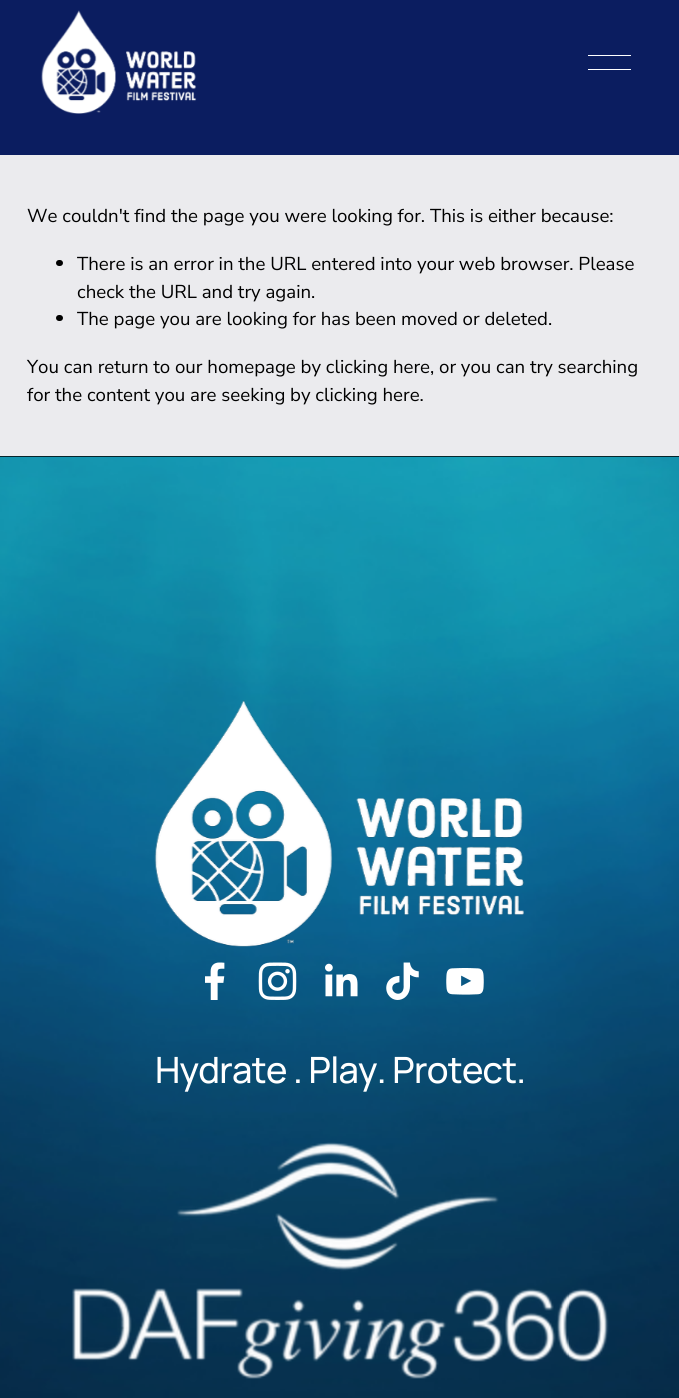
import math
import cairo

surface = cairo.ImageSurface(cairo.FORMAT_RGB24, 679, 1398)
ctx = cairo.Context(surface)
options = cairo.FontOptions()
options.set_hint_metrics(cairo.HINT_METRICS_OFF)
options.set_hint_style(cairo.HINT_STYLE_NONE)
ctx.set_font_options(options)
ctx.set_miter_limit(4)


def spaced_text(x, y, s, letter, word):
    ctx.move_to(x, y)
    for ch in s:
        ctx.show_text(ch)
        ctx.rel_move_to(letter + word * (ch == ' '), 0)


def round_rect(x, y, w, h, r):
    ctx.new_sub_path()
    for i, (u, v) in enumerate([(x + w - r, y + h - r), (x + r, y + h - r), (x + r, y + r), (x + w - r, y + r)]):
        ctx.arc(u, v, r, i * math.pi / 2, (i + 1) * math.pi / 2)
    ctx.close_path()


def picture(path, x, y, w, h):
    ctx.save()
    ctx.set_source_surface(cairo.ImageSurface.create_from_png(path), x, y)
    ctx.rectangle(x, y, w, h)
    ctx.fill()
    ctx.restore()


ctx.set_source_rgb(0.918, 0.918, 0.933)
ctx.paint()
ctx.set_source_rgb(0.043, 0.114, 0.376)
ctx.rectangle(0, 0, 679, 155)
ctx.fill()
picture("img1.png", 41, 10, 156, 104)
ctx.set_source_rgb(1, 1, 1)
ctx.rectangle(588, 55, 43, 1)
ctx.fill()
ctx.rectangle(588, 69, 43, 1)
ctx.fill()
ctx.select_font_face("Nunito Sans")
ctx.set_font_size(18.65)
ctx.set_source_rgb(0, 0, 0)
ctx.move_to(27, 222)
ctx.show_text("We couldn't find the page you were looking for. This is either because:")
round_rect(56, 260, 7, 6, 3)
ctx.fill()
ctx.move_to(77, 270)
ctx.show_text("There is an error in the URL entered into your web browser. Please")
ctx.move_to(77, 298)
ctx.show_text("check the URL and try again.")
round_rect(56, 315, 7, 6, 3)
ctx.fill()
ctx.move_to(77, 325)
ctx.show_text("The page you are looking for has been moved or deleted.")
ctx.move_to(27, 373)
ctx.show_text("You can return to our homepage by clicking here, or you can try searching")
ctx.move_to(27, 401)
ctx.show_text("for the content you are seeking by clicking here.")
ctx.rectangle(0, 456, 679, 1)
ctx.fill()
picture("img2.png", 0, 456, 679, 942)
picture("img3.png", 154, 700, 370, 247)
picture("img4.png", 205, 962, 20, 38)
picture("img5.png", 258, 962, 39, 38)
picture("img6.png", 325, 963, 33, 34)
picture("img7.png", 386, 962, 33, 38)
picture("img8.png", 446, 968, 38, 27)
ctx.select_font_face("Manrope Medium")
ctx.set_font_size(36.25)
ctx.set_source_rgb(1, 1, 1)
spaced_text(155, 1083, "Hydrate . Play. Protect.", -0.75, 0)
picture("img9.png", 72, 1142, 537, 237)
surface.write_to_png("page.png")
